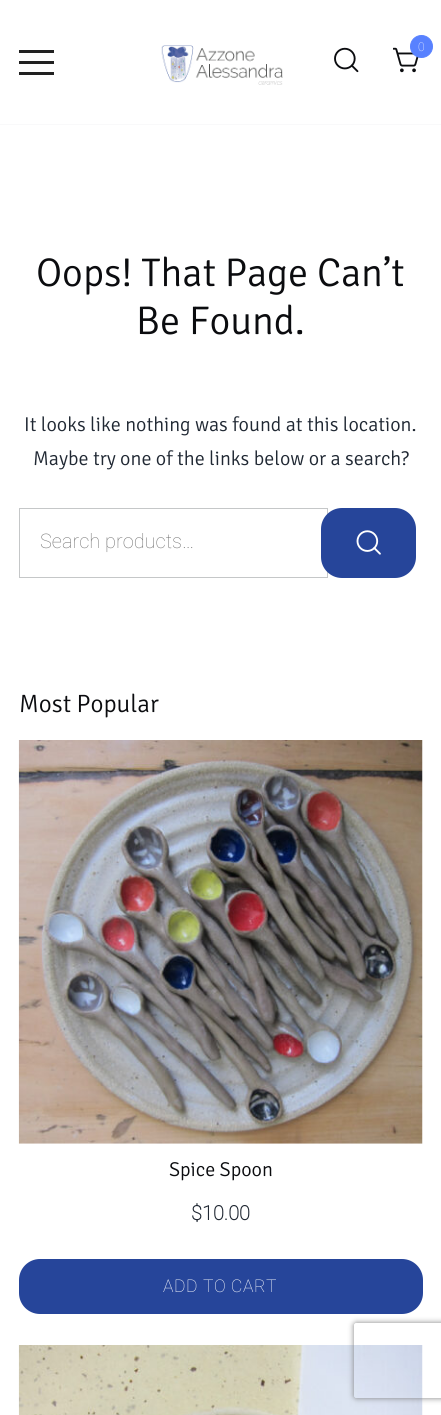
import math
import cairo

surface = cairo.ImageSurface(cairo.FORMAT_RGB24, 441, 1415)
ctx = cairo.Context(surface)
options = cairo.FontOptions()
options.set_hint_metrics(cairo.HINT_METRICS_OFF)
options.set_hint_style(cairo.HINT_STYLE_NONE)
ctx.set_font_options(options)
ctx.set_miter_limit(4)


def spaced_text(x, y, s, letter, word):
    ctx.move_to(x, y)
    for ch in s:
        ctx.show_text(ch)
        ctx.rel_move_to(letter + word * (ch == ' '), 0)


def round_rect(x, y, w, h, r):
    ctx.new_sub_path()
    for i, (u, v) in enumerate([(x + w - r, y + h - r), (x + r, y + h - r), (x + r, y + r), (x + w - r, y + r)]):
        ctx.arc(u, v, r, i * math.pi / 2, (i + 1) * math.pi / 2)
    ctx.close_path()


def shadow(x, y, w, h, r, blur, alpha):
    ctx.push_group_with_content(cairo.CONTENT_ALPHA)
    ctx.set_operator(cairo.OPERATOR_SOURCE)
    for i in range(15, -16, -2):
        e = blur * i / 6
        if min(w, h) + 2 * e > 0:
            ctx.set_source_rgba(0, 0, 0, alpha * math.erfc((i - 1) / 8.5) / 2)
            round_rect(x - e, y - e, w + 2 * e, h + 2 * e, max(0, min(r + e + blur * .6, min(w, h) / 2 + e)))
            ctx.fill()
    ctx.mask(ctx.pop_group())


def picture(path, x, y, w, h):
    ctx.save()
    ctx.set_source_surface(cairo.ImageSurface.create_from_png(path), x, y)
    ctx.rectangle(x, y, w, h)
    ctx.fill()
    ctx.restore()


ctx.set_source_rgb(1, 1, 1)
ctx.paint()
ctx.set_source_rgb(0.976, 0.976, 0.98)
ctx.rectangle(0, 124, 441, 1)
ctx.fill()
ctx.set_source_rgb(0.129, 0.129, 0.129)
ctx.rectangle(19, 50, 35, 3)
ctx.fill()
ctx.rectangle(19, 61, 35, 3)
ctx.fill()
ctx.rectangle(19, 72, 35, 3)
ctx.fill()
picture("img1.png", 161, 45, 122, 40)
picture("img2.png", 334, 47, 25, 26)
picture("img3.png", 393, 47, 26, 26)
ctx.set_source_rgb(0.345, 0.506, 1)
ctx.arc(421.5, 46.5, 11, 0, 2 * math.pi)
ctx.fill_preserve()
ctx.set_line_width(1)
ctx.stroke()
ctx.select_font_face("Roboto Thin")
ctx.set_font_size(12)
ctx.set_source_rgb(1, 1, 1)
ctx.move_to(418, 51)
ctx.show_text("0")
ctx.select_font_face("Signika Light")
ctx.set_font_size(40)
ctx.set_source_rgb(0.043, 0.047, 0.059)
ctx.move_to(36, 286)
ctx.show_text("Oops! That Page Can’t")
ctx.move_to(136, 334)
ctx.show_text("Be Found.")
ctx.set_font_size(20)
ctx.set_source_rgb(0.125, 0.157, 0.2)
ctx.move_to(24, 431)
ctx.show_text("It looks like nothing was found at this location.")
ctx.move_to(33, 465)
ctx.show_text("Maybe try one of the links below or a search?")
ctx.rectangle(19.5, 508.5, 308, 69)
ctx.set_source_rgb(0.773, 0.78, 0.784)
ctx.stroke()
ctx.select_font_face("Roboto Thin")
ctx.set_source_rgb(0.459, 0.459, 0.459)
ctx.move_to(40, 548)
ctx.show_text("Search products…")
ctx.set_source_rgb(0.149, 0.271, 0.604)
round_rect(322.5, 509.5, 92, 67, 19.5)
ctx.fill_preserve()
ctx.set_line_width(3)
ctx.stroke()
picture("img4.png", 356, 530, 25, 25)
ctx.select_font_face("Signika Light")
ctx.set_font_size(25)
ctx.set_source_rgb(0.043, 0.047, 0.059)
ctx.move_to(19, 712)
ctx.show_text("Most Popular")
picture("img5.png", 18, 740, 405, 404)
ctx.set_font_size(20)
ctx.move_to(169, 1176)
ctx.show_text("Spice Spoon")
ctx.select_font_face("Roboto", cairo.FONT_SLANT_NORMAL, cairo.FONT_WEIGHT_BOLD)
ctx.set_source_rgb(0.125, 0.157, 0.2)
ctx.move_to(191, 1220)
ctx.show_text("$10.00")
ctx.set_source_rgb(0.149, 0.271, 0.604)
round_rect(20.5, 1260.5, 401, 52, 19.5)
ctx.fill_preserve()
ctx.stroke()
ctx.select_font_face("Roboto Thin")
ctx.set_font_size(17.5)
ctx.set_source_rgb(1, 1, 1)
spaced_text(163, 1292, "ADD TO CART", 0.6, 0)
picture("img6.png", 18, 1345, 405, 70)
ctx.save()
ctx.set_fill_rule(cairo.FILL_RULE_EVEN_ODD)
ctx.new_path()
ctx.move_to(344, 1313)
ctx.line_to(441, 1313)
ctx.line_to(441, 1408)
ctx.line_to(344, 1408)
ctx.close_path()
ctx.move_to(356.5, 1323)
ctx.line_to(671.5, 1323)
ctx.curve_to(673, 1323, 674, 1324, 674, 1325.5)
ctx.line_to(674, 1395.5)
ctx.curve_to(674, 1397, 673, 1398, 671.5, 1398)
ctx.line_to(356.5, 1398)
ctx.curve_to(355, 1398, 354, 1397, 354, 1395.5)
ctx.line_to(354, 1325.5)
ctx.curve_to(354, 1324, 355, 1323, 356.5, 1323)
ctx.close_path()
ctx.clip()
ctx.set_source_rgb(0.502, 0.502, 0.502)
shadow(354, 1323, 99, 75, 2.5, 3, 1)
ctx.restore()
surface.write_to_png("page.png")
